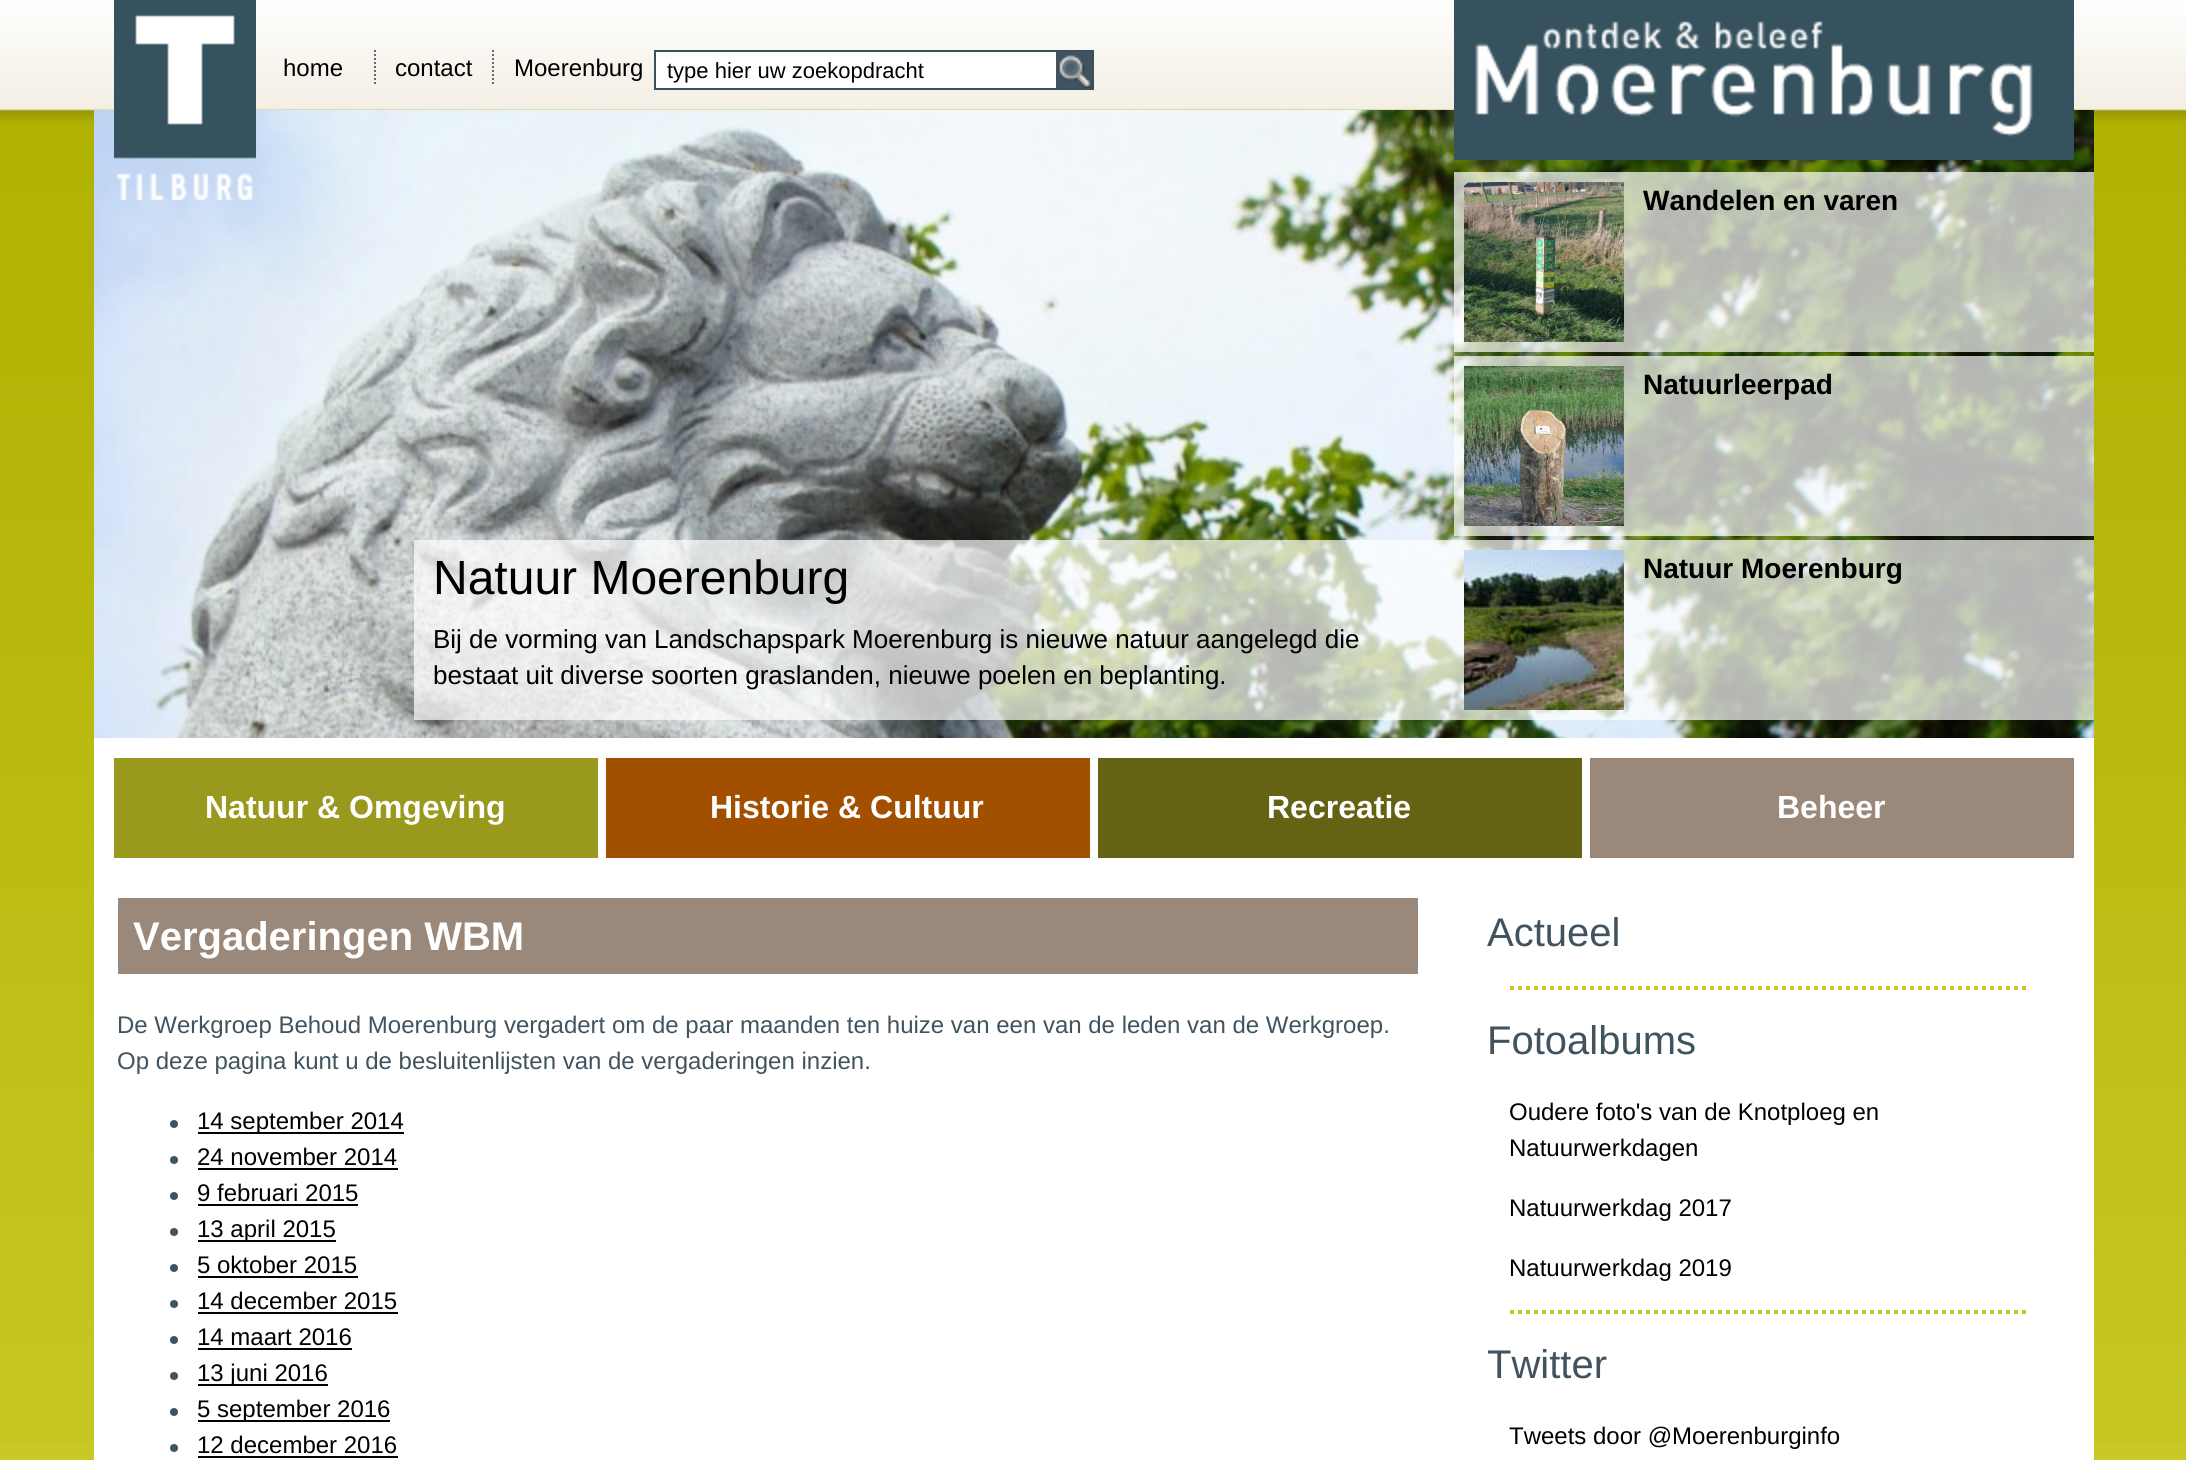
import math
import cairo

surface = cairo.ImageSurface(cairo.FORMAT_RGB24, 2186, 1460)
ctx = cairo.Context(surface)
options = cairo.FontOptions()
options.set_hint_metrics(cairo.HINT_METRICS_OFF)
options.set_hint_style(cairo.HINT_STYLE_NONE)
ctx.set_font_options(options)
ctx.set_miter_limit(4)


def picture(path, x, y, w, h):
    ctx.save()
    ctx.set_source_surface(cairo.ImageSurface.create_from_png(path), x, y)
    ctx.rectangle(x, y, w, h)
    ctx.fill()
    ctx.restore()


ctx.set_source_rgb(0.784, 0.788, 0.149)
ctx.paint()
picture("img1.png", 0, 0, 2186, 1442)
picture("img6.png", 94, 110, 2000, 628)
picture("img2.png", 114, 0, 142, 200)
ctx.select_font_face("Liberation Sans")
ctx.set_font_size(24)
ctx.set_source_rgb(0, 0, 0)
ctx.move_to(283, 76)
ctx.show_text("home")
ctx.new_path()
ctx.move_to(375, 50)
ctx.line_to(375, 86)
ctx.set_source_rgb(0.4, 0.4, 0.4)
ctx.set_dash([2, 2])
ctx.stroke()
ctx.set_source_rgb(0, 0, 0)
ctx.move_to(395, 76)
ctx.show_text("contact")
ctx.new_path()
ctx.move_to(493, 50)
ctx.line_to(493, 86)
ctx.set_source_rgb(0.4, 0.4, 0.4)
ctx.stroke()
ctx.set_source_rgb(0, 0, 0)
ctx.move_to(514, 76)
ctx.show_text("Moerenburg")
picture("img3.png", 2053, 0, 21, 160)
picture("img4.png", 1454, 0, 599, 160)
ctx.rectangle(655, 51, 438, 38)
ctx.set_source_rgb(0.208, 0.322, 0.369)
ctx.set_dash([])
ctx.stroke()
ctx.set_source_rgb(1, 1, 1)
ctx.rectangle(656, 52, 400, 36)
ctx.fill()
ctx.set_font_size(22)
ctx.set_source_rgb(0, 0, 0)
ctx.move_to(667, 78)
ctx.show_text("type hier uw zoekopdracht")
picture("img5.png", 1056, 52, 36, 36)
ctx.set_source_rgba(1, 1, 1, 0.7)
ctx.rectangle(1454, 172, 640, 180)
ctx.fill()
picture("img7.png", 1464, 182, 160, 160)
ctx.select_font_face("Liberation Sans", cairo.FONT_SLANT_NORMAL, cairo.FONT_WEIGHT_BOLD)
ctx.set_font_size(28)
ctx.set_source_rgb(0, 0, 0)
ctx.move_to(1643, 210)
ctx.show_text("Wandelen en varen")
ctx.set_source_rgba(1, 1, 1, 0.7)
ctx.rectangle(1454, 356, 640, 180)
ctx.fill()
picture("img8.png", 1464, 366, 160, 160)
ctx.set_source_rgb(0, 0, 0)
ctx.move_to(1643, 394)
ctx.show_text("Natuurleerpad")
ctx.set_source_rgba(1, 1, 1, 0.7)
ctx.rectangle(414, 540, 1040, 180)
ctx.fill()
ctx.select_font_face("Liberation Sans")
ctx.set_font_size(48)
ctx.set_source_rgb(0, 0, 0)
ctx.move_to(433, 594)
ctx.show_text("Natuur Moerenburg")
ctx.set_font_size(26)
ctx.move_to(433, 648)
ctx.show_text("Bij de vorming van Landschapspark Moerenburg is nieuwe natuur aangelegd die")
ctx.move_to(433, 684)
ctx.show_text("bestaat uit diverse soorten graslanden, nieuwe poelen en beplanting.")
ctx.set_source_rgba(1, 1, 1, 0.7)
ctx.rectangle(1454, 540, 640, 180)
ctx.fill()
picture("img9.png", 1464, 550, 160, 160)
ctx.select_font_face("Liberation Sans", cairo.FONT_SLANT_NORMAL, cairo.FONT_WEIGHT_BOLD)
ctx.set_font_size(28)
ctx.set_source_rgb(0, 0, 0)
ctx.move_to(1643, 578)
ctx.show_text("Natuur Moerenburg")
ctx.set_source_rgb(1, 1, 1)
ctx.rectangle(94, 738, 2000, 722)
ctx.fill()
ctx.set_source_rgb(0.6, 0.6, 0.114)
ctx.rectangle(114, 758, 484, 100)
ctx.fill()
ctx.set_font_size(32)
ctx.set_source_rgb(1, 1, 1)
ctx.move_to(205, 818)
ctx.show_text("Natuur & Omgeving")
ctx.set_source_rgb(0.635, 0.314, 0)
ctx.rectangle(606, 758, 484, 100)
ctx.fill()
ctx.set_source_rgb(1, 1, 1)
ctx.move_to(710, 818)
ctx.show_text("Historie & Cultuur")
ctx.set_source_rgb(0.392, 0.388, 0.075)
ctx.rectangle(1098, 758, 484, 100)
ctx.fill()
ctx.set_source_rgb(1, 1, 1)
ctx.move_to(1267, 818)
ctx.show_text("Recreatie")
ctx.set_source_rgb(0.604, 0.533, 0.478)
ctx.rectangle(1590, 758, 484, 100)
ctx.fill()
ctx.set_source_rgb(1, 1, 1)
ctx.move_to(1777, 818)
ctx.show_text("Beheer")
ctx.set_source_rgb(0.604, 0.533, 0.478)
ctx.rectangle(118, 898, 1300, 76)
ctx.fill()
ctx.set_font_size(40)
ctx.set_source_rgb(1, 1, 1)
ctx.move_to(133, 950)
ctx.show_text("Vergaderingen WBM")
ctx.select_font_face("Liberation Sans")
ctx.set_font_size(24)
ctx.set_source_rgb(0.255, 0.325, 0.369)
ctx.move_to(117, 1033)
ctx.show_text("De Werkgroep Behoud Moerenburg vergadert om de paar maanden ten huize van een van de leden van de Werkgroep.")
ctx.move_to(117, 1069)
ctx.show_text("Op deze pagina kunt u de besluitenlijsten van de vergaderingen inzien.")
ctx.new_path()
ctx.arc(174, 1124, 4, 0, 2 * math.pi)
ctx.fill()
ctx.set_source_rgb(0, 0, 0)
ctx.rectangle(198, 1132, 206, 2)
ctx.fill()
ctx.move_to(197, 1129)
ctx.show_text("14 september 2014")
ctx.set_source_rgb(0.255, 0.325, 0.369)
ctx.new_path()
ctx.arc(174, 1160, 4, 0, 2 * math.pi)
ctx.fill()
ctx.set_source_rgb(0, 0, 0)
ctx.move_to(197, 1165)
ctx.show_text("24 november 2014")
ctx.rectangle(198, 1168, 200, 2)
ctx.fill()
ctx.set_source_rgb(0.255, 0.325, 0.369)
ctx.arc(174, 1196, 4, 0, 2 * math.pi)
ctx.fill()
ctx.set_source_rgb(0, 0, 0)
ctx.move_to(197, 1201)
ctx.show_text("9 februari 2015")
ctx.rectangle(198, 1204, 160, 2)
ctx.fill()
ctx.set_source_rgb(0.255, 0.325, 0.369)
ctx.arc(174, 1232, 4, 0, 2 * math.pi)
ctx.fill()
ctx.set_source_rgb(0, 0, 0)
ctx.rectangle(198, 1240, 138, 2)
ctx.fill()
ctx.move_to(197, 1237)
ctx.show_text("13 april 2015")
ctx.set_source_rgb(0.255, 0.325, 0.369)
ctx.new_path()
ctx.arc(174, 1268, 4, 0, 2 * math.pi)
ctx.fill()
ctx.set_source_rgb(0, 0, 0)
ctx.move_to(197, 1273)
ctx.show_text("5 oktober 2015")
ctx.rectangle(198, 1276, 160, 2)
ctx.fill()
ctx.set_source_rgb(0.255, 0.325, 0.369)
ctx.arc(174, 1304, 4, 0, 2 * math.pi)
ctx.fill()
ctx.set_source_rgb(0, 0, 0)
ctx.move_to(197, 1309)
ctx.show_text("14 december 2015")
ctx.rectangle(198, 1312, 200, 2)
ctx.fill()
ctx.set_source_rgb(0.255, 0.325, 0.369)
ctx.arc(174, 1340, 4, 0, 2 * math.pi)
ctx.fill()
ctx.set_source_rgb(0, 0, 0)
ctx.move_to(197, 1345)
ctx.show_text("14 maart 2016")
ctx.rectangle(198, 1348, 154, 2)
ctx.fill()
ctx.set_source_rgb(0.255, 0.325, 0.369)
ctx.arc(174, 1376, 4, 0, 2 * math.pi)
ctx.fill()
ctx.set_source_rgb(0, 0, 0)
ctx.rectangle(198, 1384, 130, 2)
ctx.fill()
ctx.move_to(197, 1381)
ctx.show_text("13 juni 2016")
ctx.set_source_rgb(0.255, 0.325, 0.369)
ctx.new_path()
ctx.arc(174, 1412, 4, 0, 2 * math.pi)
ctx.fill()
ctx.set_source_rgb(0, 0, 0)
ctx.rectangle(198, 1420, 192, 2)
ctx.fill()
ctx.move_to(197, 1417)
ctx.show_text("5 september 2016")
ctx.set_source_rgb(0.255, 0.325, 0.369)
ctx.new_path()
ctx.arc(174, 1448, 4, 0, 2 * math.pi)
ctx.fill()
ctx.set_source_rgb(0, 0, 0)
ctx.move_to(197, 1453)
ctx.show_text("12 december 2016")
ctx.rectangle(198, 1456, 200, 2)
ctx.fill()
ctx.set_font_size(40)
ctx.set_source_rgb(0.255, 0.325, 0.369)
ctx.move_to(1487, 946)
ctx.show_text("Actueel")
ctx.new_path()
ctx.move_to(1510, 988)
ctx.line_to(2030, 988)
ctx.set_source_rgb(0.784, 0.788, 0.149)
ctx.set_line_width(4)
ctx.set_dash([4, 4])
ctx.stroke()
ctx.set_source_rgb(0.255, 0.325, 0.369)
ctx.move_to(1487, 1054)
ctx.show_text("Fotoalbums")
ctx.new_path()
ctx.move_to(1510, 1312)
ctx.line_to(2030, 1312)
ctx.set_source_rgb(0.784, 0.788, 0.149)
ctx.stroke()
ctx.set_font_size(24)
ctx.set_source_rgb(0, 0, 0)
ctx.move_to(1509, 1120)
ctx.show_text("Oudere foto's van de Knotploeg en")
ctx.move_to(1509, 1156)
ctx.show_text("Natuurwerkdagen")
ctx.move_to(1509, 1216)
ctx.show_text("Natuurwerkdag 2017")
ctx.move_to(1509, 1276)
ctx.show_text("Natuurwerkdag 2019")
ctx.set_font_size(40)
ctx.set_source_rgb(0.255, 0.325, 0.369)
ctx.move_to(1487, 1378)
ctx.show_text("Twitter")
ctx.set_font_size(24)
ctx.set_source_rgb(0, 0, 0)
ctx.move_to(1509, 1444)
ctx.show_text("Tweets door @Moerenburginfo")
surface.write_to_png("page.png")
